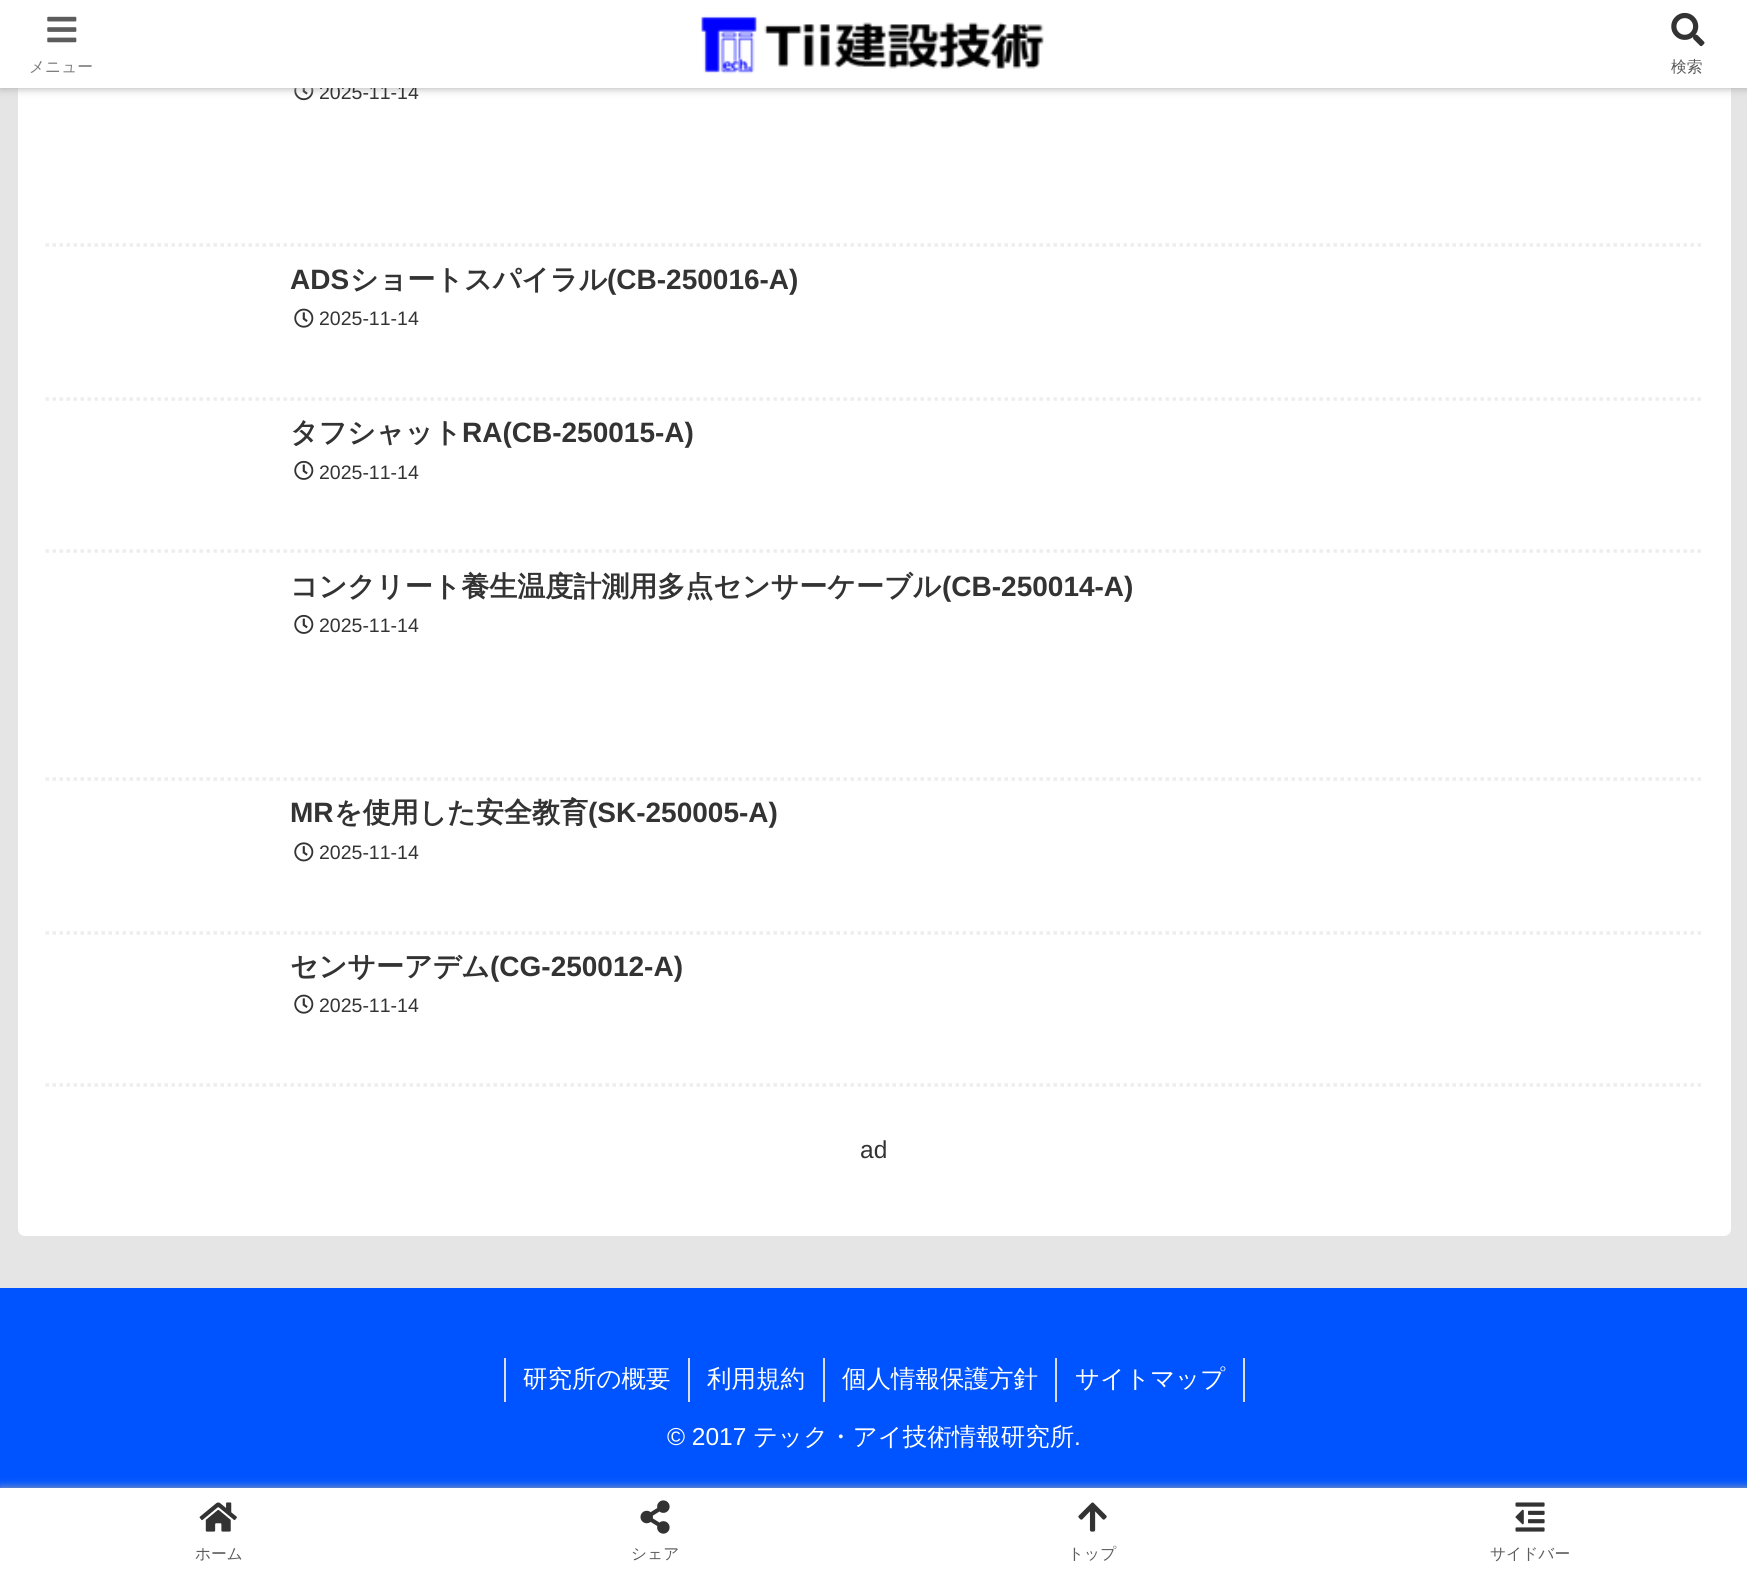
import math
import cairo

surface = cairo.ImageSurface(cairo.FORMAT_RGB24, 1747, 1575)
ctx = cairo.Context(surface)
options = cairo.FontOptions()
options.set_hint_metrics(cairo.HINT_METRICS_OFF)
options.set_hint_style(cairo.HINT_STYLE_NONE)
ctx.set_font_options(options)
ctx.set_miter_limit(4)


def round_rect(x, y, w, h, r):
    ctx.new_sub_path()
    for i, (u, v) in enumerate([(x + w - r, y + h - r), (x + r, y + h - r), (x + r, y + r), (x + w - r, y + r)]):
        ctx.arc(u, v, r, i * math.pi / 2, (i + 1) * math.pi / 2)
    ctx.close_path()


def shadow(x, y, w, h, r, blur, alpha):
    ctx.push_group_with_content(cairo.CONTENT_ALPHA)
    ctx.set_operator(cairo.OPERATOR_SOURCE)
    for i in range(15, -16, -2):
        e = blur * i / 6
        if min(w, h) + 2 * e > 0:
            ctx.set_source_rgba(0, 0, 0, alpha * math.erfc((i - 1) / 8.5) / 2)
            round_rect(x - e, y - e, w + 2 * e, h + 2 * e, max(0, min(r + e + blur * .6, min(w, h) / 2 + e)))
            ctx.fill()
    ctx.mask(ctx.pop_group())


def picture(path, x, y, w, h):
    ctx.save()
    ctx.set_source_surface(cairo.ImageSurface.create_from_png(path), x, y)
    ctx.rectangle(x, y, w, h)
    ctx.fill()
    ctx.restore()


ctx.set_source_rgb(0.898, 0.898, 0.898)
ctx.paint()
ctx.set_source_rgb(1, 1, 1)
round_rect(18, -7, 1713, 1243, 7)
ctx.fill()
picture("img4.png", 294, 88, 20, 13)
ctx.set_source_rgb(0.663, 0.663, 0.663)
shadow(0, 0, 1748, 88, 0, 4.5, 1)
ctx.select_font_face("Liberation Sans")
ctx.set_font_size(19.5)
ctx.set_source_rgb(0.2, 0.2, 0.2)
ctx.move_to(319, 99)
ctx.show_text("2025-11-14")
ctx.set_source_rgb(1, 1, 1)
ctx.rectangle(0, 0, 1747, 88)
ctx.fill()
picture("img1.png", 47, 16, 30, 27)
ctx.select_font_face("WenQuanYi Zen Hei Medium")
ctx.set_font_size(15.75)
ctx.set_source_rgb(0.486, 0.486, 0.486)
ctx.move_to(29, 72)
ctx.show_text("メニュー")
picture("img2.png", 700, 15, 344, 59)
picture("img3.png", 1671, 12, 34, 35)
ctx.set_source_rgb(0.361, 0.361, 0.361)
ctx.move_to(1671, 72)
ctx.show_text("検索")
ctx.new_path()
ctx.move_to(45.5, 245)
ctx.line_to(1703, 245)
ctx.set_source_rgb(0.933, 0.933, 0.933)
ctx.set_line_width(3.5)
ctx.set_dash([3.5, 3.5])
ctx.stroke()
ctx.new_path()
ctx.move_to(45.5, 399)
ctx.line_to(1703, 399)
ctx.stroke()
ctx.select_font_face("Liberation Sans", cairo.FONT_SLANT_NORMAL, cairo.FONT_WEIGHT_BOLD)
ctx.set_font_size(28)
ctx.set_source_rgb(0.2, 0.2, 0.2)
ctx.move_to(290, 289)
ctx.show_text("ADS")
ctx.select_font_face("WenQuanYi Zen Hei", cairo.FONT_SLANT_NORMAL, cairo.FONT_WEIGHT_BOLD)
ctx.move_to(350, 289)
ctx.show_text("ショートスパイラル")
ctx.select_font_face("Liberation Sans", cairo.FONT_SLANT_NORMAL, cairo.FONT_WEIGHT_BOLD)
ctx.move_to(607, 289)
ctx.show_text("(CB-250016-A)")
picture("img5.png", 294, 308, 20, 20)
ctx.select_font_face("Liberation Sans")
ctx.set_font_size(19.5)
ctx.move_to(319, 325)
ctx.show_text("2025-11-14")
ctx.new_path()
ctx.move_to(45.5, 551)
ctx.line_to(1703, 551)
ctx.set_source_rgb(0.933, 0.933, 0.933)
ctx.stroke()
ctx.select_font_face("WenQuanYi Zen Hei", cairo.FONT_SLANT_NORMAL, cairo.FONT_WEIGHT_BOLD)
ctx.set_font_size(28)
ctx.set_source_rgb(0.2, 0.2, 0.2)
ctx.move_to(290, 442)
ctx.show_text("タフシャット")
ctx.select_font_face("Liberation Sans", cairo.FONT_SLANT_NORMAL, cairo.FONT_WEIGHT_BOLD)
ctx.move_to(462, 442)
ctx.show_text("RA(CB-250015-A)")
picture("img6.png", 294, 460, 20, 20)
ctx.select_font_face("Liberation Sans")
ctx.set_font_size(19.5)
ctx.move_to(319, 479)
ctx.show_text("2025-11-14")
ctx.new_path()
ctx.move_to(45.5, 779)
ctx.line_to(1703, 779)
ctx.set_source_rgb(0.933, 0.933, 0.933)
ctx.stroke()
ctx.select_font_face("WenQuanYi Zen Hei", cairo.FONT_SLANT_NORMAL, cairo.FONT_WEIGHT_BOLD)
ctx.set_font_size(28)
ctx.set_source_rgb(0.2, 0.2, 0.2)
ctx.move_to(290, 596)
ctx.show_text("コンクリート養生温度計測用多点センサーケーブル")
ctx.select_font_face("Liberation Sans", cairo.FONT_SLANT_NORMAL, cairo.FONT_WEIGHT_BOLD)
ctx.move_to(942, 596)
ctx.show_text("(CB-250014-A)")
picture("img6.png", 294, 614, 20, 20)
ctx.select_font_face("Liberation Sans")
ctx.set_font_size(19.5)
ctx.move_to(319, 632)
ctx.show_text("2025-11-14")
ctx.new_path()
ctx.move_to(45.5, 933)
ctx.line_to(1703, 933)
ctx.set_source_rgb(0.933, 0.933, 0.933)
ctx.stroke()
ctx.select_font_face("Liberation Sans", cairo.FONT_SLANT_NORMAL, cairo.FONT_WEIGHT_BOLD)
ctx.set_font_size(28)
ctx.set_source_rgb(0.2, 0.2, 0.2)
ctx.move_to(290, 822)
ctx.show_text("MR")
ctx.select_font_face("WenQuanYi Zen Hei", cairo.FONT_SLANT_NORMAL, cairo.FONT_WEIGHT_BOLD)
ctx.move_to(334, 822)
ctx.show_text("を使用した安全教育")
ctx.select_font_face("Liberation Sans", cairo.FONT_SLANT_NORMAL, cairo.FONT_WEIGHT_BOLD)
ctx.move_to(588, 822)
ctx.show_text("(SK-250005-A)")
picture("img7.png", 294, 842, 20, 20)
ctx.select_font_face("Liberation Sans")
ctx.set_font_size(19.5)
ctx.move_to(319, 859)
ctx.show_text("2025-11-14")
ctx.new_path()
ctx.move_to(45.5, 1085)
ctx.line_to(1703, 1085)
ctx.set_source_rgb(0.933, 0.933, 0.933)
ctx.stroke()
ctx.select_font_face("WenQuanYi Zen Hei", cairo.FONT_SLANT_NORMAL, cairo.FONT_WEIGHT_BOLD)
ctx.set_font_size(28)
ctx.set_source_rgb(0.2, 0.2, 0.2)
ctx.move_to(290, 976)
ctx.show_text("センサーアデム")
ctx.select_font_face("Liberation Sans", cairo.FONT_SLANT_NORMAL, cairo.FONT_WEIGHT_BOLD)
ctx.move_to(490, 976)
ctx.show_text("(CG-250012-A)")
picture("img5.png", 294, 994, 20, 20)
ctx.select_font_face("Liberation Sans")
ctx.set_font_size(19.5)
ctx.move_to(319, 1012)
ctx.show_text("2025-11-14")
ctx.set_font_size(24.5)
ctx.move_to(860, 1158)
ctx.show_text("ad")
ctx.set_source_rgb(0, 0.329, 1)
ctx.rectangle(0, 1288, 1747, 200)
ctx.fill()
ctx.set_source_rgb(0.867, 0.867, 0.867)
ctx.rectangle(504, 1358, 2, 44)
ctx.fill()
ctx.select_font_face("WenQuanYi Zen Hei Medium")
ctx.set_source_rgb(1, 1, 1)
ctx.move_to(523, 1387)
ctx.show_text("研究所の概要")
ctx.set_source_rgb(0.867, 0.867, 0.867)
ctx.rectangle(688, 1358, 2, 44)
ctx.fill()
ctx.set_source_rgb(1, 1, 1)
ctx.move_to(707, 1387)
ctx.show_text("利用規約")
ctx.set_source_rgb(0.867, 0.867, 0.867)
ctx.rectangle(823, 1358, 2, 44)
ctx.fill()
ctx.set_source_rgb(1, 1, 1)
ctx.move_to(842, 1387)
ctx.show_text("個人情報保護方針")
ctx.set_source_rgb(0.867, 0.867, 0.867)
ctx.rectangle(1243, 1358, 2, 44)
ctx.fill()
ctx.rectangle(1055, 1358, 2, 44)
ctx.fill()
ctx.set_source_rgb(1, 1, 1)
ctx.move_to(1075, 1387)
ctx.show_text("サイトマップ")
ctx.select_font_face("Liberation Sans")
ctx.move_to(667, 1445)
ctx.show_text("© 2017")
ctx.select_font_face("WenQuanYi Zen Hei Medium")
ctx.move_to(753, 1445)
ctx.show_text("テック・アイ技術情報研究所")
ctx.select_font_face("Liberation Sans")
ctx.move_to(1074, 1445)
ctx.show_text(".")
ctx.set_source_rgb(0.663, 0.663, 0.663)
shadow(0, 1488, 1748, 87, 0, 4.5, 1)
ctx.set_source_rgb(1, 1, 1)
ctx.rectangle(0, 1488, 1747, 87)
ctx.fill()
picture("img8.png", 199, 1502, 38, 30)
ctx.select_font_face("WenQuanYi Zen Hei Medium")
ctx.set_font_size(15.75)
ctx.set_source_rgb(0.361, 0.361, 0.361)
ctx.move_to(195, 1559)
ctx.show_text("ホーム")
picture("img9.png", 640, 1500, 30, 34)
ctx.move_to(631, 1559)
ctx.show_text("シェア")
picture("img10.png", 1078, 1502, 29, 30)
ctx.move_to(1068, 1559)
ctx.show_text("トップ")
picture("img11.png", 1515, 1502, 30, 30)
ctx.move_to(1490, 1559)
ctx.show_text("サイドバー")
surface.write_to_png("page.png")
